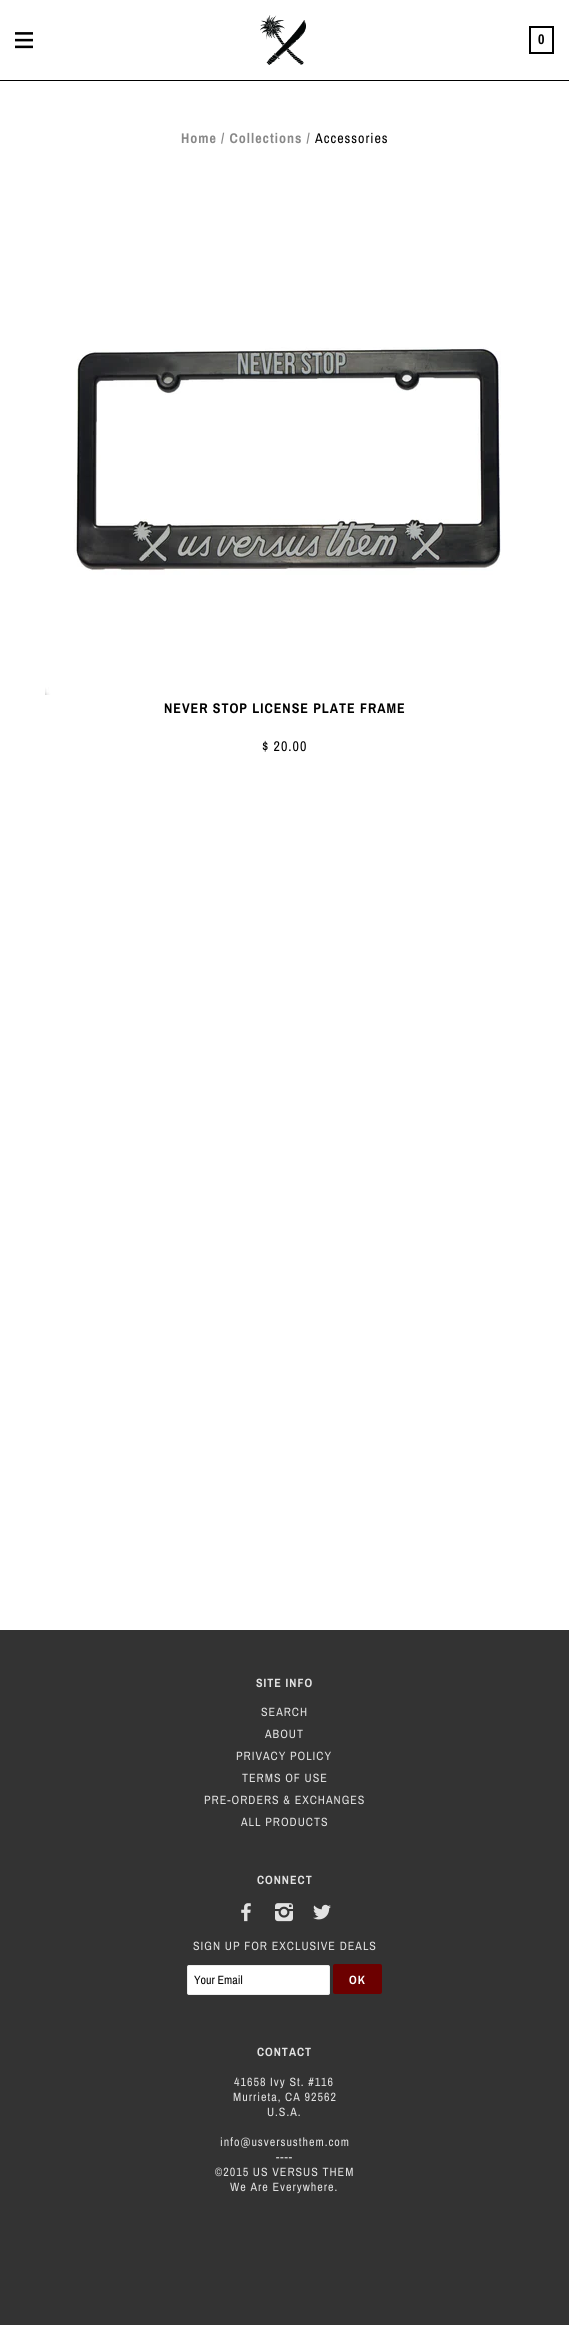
import math
import cairo

surface = cairo.ImageSurface(cairo.FORMAT_RGB24, 569, 2325)
ctx = cairo.Context(surface)
options = cairo.FontOptions()
options.set_hint_metrics(cairo.HINT_METRICS_OFF)
options.set_hint_style(cairo.HINT_STYLE_NONE)
ctx.set_font_options(options)
ctx.set_miter_limit(4)


def spaced_text(x, y, s, letter, word):
    ctx.move_to(x, y)
    for ch in s:
        ctx.show_text(ch)
        ctx.rel_move_to(letter + word * (ch == ' '), 0)


def round_rect(x, y, w, h, r):
    ctx.new_sub_path()
    for i, (u, v) in enumerate([(x + w - r, y + h - r), (x + r, y + h - r), (x + r, y + r), (x + w - r, y + r)]):
        ctx.arc(u, v, r, i * math.pi / 2, (i + 1) * math.pi / 2)
    ctx.close_path()


def picture(path, x, y, w, h):
    ctx.save()
    ctx.set_source_surface(cairo.ImageSurface.create_from_png(path), x, y)
    ctx.rectangle(x, y, w, h)
    ctx.fill()
    ctx.restore()


ctx.set_source_rgb(1, 1, 1)
ctx.paint()
ctx.set_source_rgb(0, 0, 0)
ctx.rectangle(0, 80, 569, 1)
ctx.fill()
picture("img1.png", 15, 32, 18, 17)
picture("img2.png", 260, 15, 46, 50)
ctx.rectangle(530, 27, 23, 26)
ctx.stroke()
ctx.select_font_face("Archivo Narrow", cairo.FONT_SLANT_NORMAL, cairo.FONT_WEIGHT_BOLD)
ctx.set_font_size(14)
spaced_text(538, 44, "0", 1, 0)
ctx.set_source_rgb(0.533, 0.533, 0.533)
spaced_text(181, 143, "Home / Collections /", 1, 0)
ctx.select_font_face("Archivo Narrow")
ctx.set_source_rgb(0, 0, 0)
spaced_text(315, 143, "Accessories", 1, 0)
picture("img3.png", 45, 347, 456, 348)
ctx.select_font_face("Archivo Narrow", cairo.FONT_SLANT_NORMAL, cairo.FONT_WEIGHT_BOLD)
spaced_text(164, 713, "NEVER STOP LICENSE PLATE FRAME", 1, 0)
ctx.select_font_face("Archivo Narrow")
spaced_text(262, 751, "$ 20.00", 1, 0)
ctx.set_source_rgb(0.2, 0.2, 0.2)
ctx.rectangle(0, 1630, 569, 695)
ctx.fill()
ctx.select_font_face("Archivo Narrow", cairo.FONT_SLANT_NORMAL, cairo.FONT_WEIGHT_BOLD)
ctx.set_font_size(12)
ctx.set_source_rgb(0.886, 0.886, 0.886)
spaced_text(256, 1687, "SITE INFO", 1, 0)
ctx.select_font_face("Archivo Narrow")
spaced_text(261, 1716, "SEARCH", 1, 0)
spaced_text(265, 1738, "ABOUT", 1, 0)
spaced_text(236, 1760, "PRIVACY POLICY", 1, 0)
spaced_text(242, 1782, "TERMS OF USE", 1, 0)
spaced_text(204, 1804, "PRE-ORDERS & EXCHANGES", 1, 0)
spaced_text(241, 1826, "ALL PRODUCTS", 1, 0)
ctx.select_font_face("Archivo Narrow", cairo.FONT_SLANT_NORMAL, cairo.FONT_WEIGHT_BOLD)
spaced_text(257, 1884, "CONNECT", 1, 0)
picture("img4.png", 241, 1903, 10, 19)
picture("img5.png", 275, 1903, 18, 19)
picture("img6.png", 313, 1904, 18, 16)
ctx.select_font_face("Archivo Narrow")
spaced_text(193, 1950, "SIGN UP FOR EXCLUSIVE DEALS", 1, 0)
ctx.set_source_rgb(1, 1, 1)
round_rect(187.5, 1965.5, 142, 29, 1.5)
ctx.fill_preserve()
ctx.set_source_rgb(0.922, 0.922, 0.922)
ctx.set_line_width(1)
ctx.stroke()
ctx.set_source_rgb(0, 0, 0)
ctx.move_to(194, 1984)
ctx.show_text("Your Email")
ctx.set_source_rgb(0.424, 0, 0)
round_rect(333, 1964, 49, 30, 2)
ctx.fill()
ctx.select_font_face("Archivo Narrow", cairo.FONT_SLANT_NORMAL, cairo.FONT_WEIGHT_BOLD)
ctx.set_source_rgb(1, 1, 1)
spaced_text(349, 1984, "OK", 1, 0)
ctx.set_source_rgb(0.886, 0.886, 0.886)
spaced_text(257, 2056, "CONTACT", 1, 0)
ctx.select_font_face("Archivo Narrow")
spaced_text(234, 2086, "41658 Ivy St. #116", 1, 0)
spaced_text(233, 2101, "Murrieta, CA 92562", 1, 0)
spaced_text(267, 2116, "U.S.A.", 1, 0)
spaced_text(220, 2146, "info@usversusthem.com", 1, 0)
spaced_text(276, 2161, "----", 1, 0)
spaced_text(215, 2176, "©2015 US VERSUS THEM", 1, 0)
spaced_text(230, 2191, "We Are Everywhere.", 1, 0)
surface.write_to_png("page.png")
